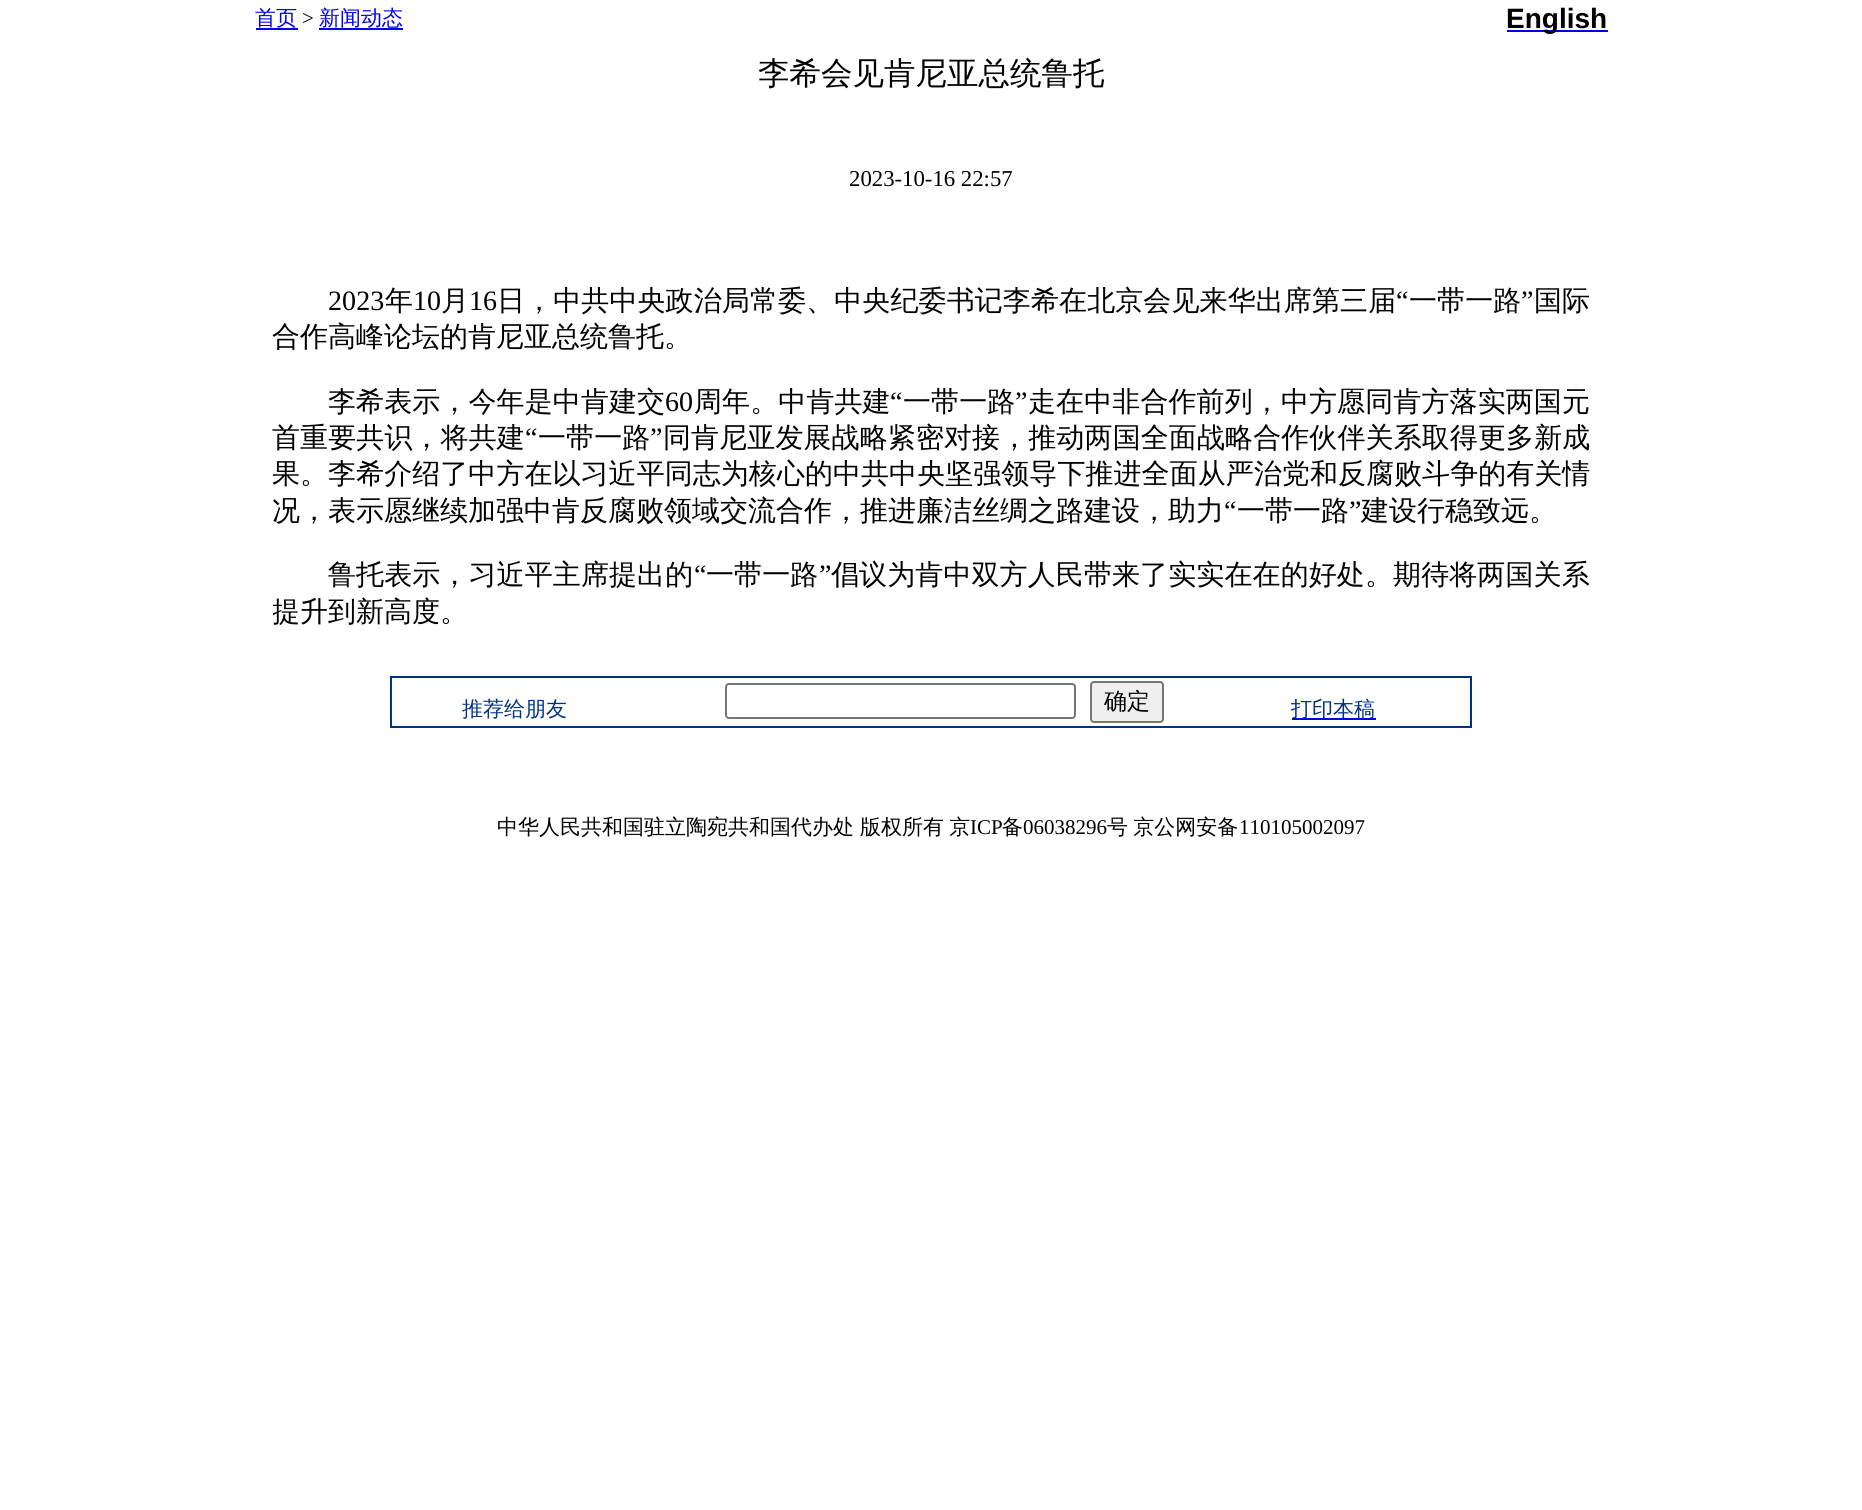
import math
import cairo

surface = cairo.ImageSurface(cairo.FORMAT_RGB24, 1862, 1510)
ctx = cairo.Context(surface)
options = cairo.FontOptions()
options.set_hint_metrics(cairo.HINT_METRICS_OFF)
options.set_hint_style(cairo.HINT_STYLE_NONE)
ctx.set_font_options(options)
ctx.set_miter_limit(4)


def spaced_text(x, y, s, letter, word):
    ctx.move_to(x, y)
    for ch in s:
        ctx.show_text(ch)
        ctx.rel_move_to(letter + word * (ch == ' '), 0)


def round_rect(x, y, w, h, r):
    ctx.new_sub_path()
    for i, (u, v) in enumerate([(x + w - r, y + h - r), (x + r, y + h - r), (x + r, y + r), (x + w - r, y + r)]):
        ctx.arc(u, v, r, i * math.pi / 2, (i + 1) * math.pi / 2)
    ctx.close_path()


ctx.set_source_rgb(1, 1, 1)
ctx.paint()
ctx.set_source_rgb(0, 0, 0.933)
ctx.rectangle(256, 28, 42, 2)
ctx.fill()
ctx.select_font_face("WenQuanYi Zen Hei Medium")
ctx.set_font_size(21)
ctx.move_to(255, 25)
ctx.show_text("首页")
ctx.select_font_face("Liberation Serif")
ctx.set_source_rgb(0, 0, 0)
ctx.move_to(302, 25)
ctx.show_text(">")
ctx.select_font_face("WenQuanYi Zen Hei Medium")
ctx.set_source_rgb(0, 0, 0.933)
ctx.move_to(319, 25)
ctx.show_text("新闻动态")
ctx.rectangle(319, 28, 84, 2)
ctx.fill()
ctx.rectangle(1507, 30, 101, 2)
ctx.fill()
ctx.select_font_face("Liberation Sans", cairo.FONT_SLANT_NORMAL, cairo.FONT_WEIGHT_BOLD)
ctx.set_font_size(28)
ctx.set_source_rgb(0, 0, 0)
ctx.move_to(1506, 28)
ctx.show_text("English")
ctx.select_font_face("WenQuanYi Zen Hei Medium")
ctx.set_font_size(31.5)
ctx.move_to(758, 84)
ctx.show_text("李希会见肯尼亚总统鲁托")
ctx.select_font_face("Liberation Serif")
ctx.set_font_size(22.75)
ctx.move_to(849, 186)
ctx.show_text("2023-10-16 22:57")
ctx.set_font_size(28)
spaced_text(328, 310, "2023", 0.1, 0)
ctx.select_font_face("WenQuanYi Zen Hei Medium")
spaced_text(385, 310, "年", 0.1, 0)
ctx.select_font_face("Liberation Serif")
spaced_text(413, 310, "10", 0.1, 0)
ctx.select_font_face("WenQuanYi Zen Hei Medium")
spaced_text(441, 310, "月", 0.1, 0)
ctx.select_font_face("Liberation Serif")
spaced_text(469, 310, "16", 0.1, 0)
ctx.select_font_face("WenQuanYi Zen Hei Medium")
spaced_text(497, 310, "日，中共中央政治局常委、中央纪委书记李希在北京会见来华出席第三届", 0.1, 0)
ctx.select_font_face("Liberation Serif")
spaced_text(1396, 310, "“", 0.1, 0)
ctx.select_font_face("WenQuanYi Zen Hei Medium")
spaced_text(1409, 310, "一带一路", 0.1, 0)
ctx.select_font_face("Liberation Serif")
spaced_text(1521, 310, "”", 0.1, 0)
ctx.select_font_face("WenQuanYi Zen Hei Medium")
spaced_text(1534, 310, "国际", 0.1, 0)
ctx.move_to(272, 346)
ctx.show_text("合作高峰论坛的肯尼亚总统鲁托。")
spaced_text(328, 411, "李希表示，今年是中肯建交", 0.1, 0)
ctx.select_font_face("Liberation Serif")
spaced_text(665, 411, "60", 0.1, 0)
ctx.select_font_face("WenQuanYi Zen Hei Medium")
spaced_text(694, 411, "周年。中肯共建", 0.1, 0)
ctx.select_font_face("Liberation Serif")
spaced_text(890, 411, "“", 0.1, 0)
ctx.select_font_face("WenQuanYi Zen Hei Medium")
spaced_text(903, 411, "一带一路", 0.1, 0)
ctx.select_font_face("Liberation Serif")
spaced_text(1015, 411, "”", 0.1, 0)
ctx.select_font_face("WenQuanYi Zen Hei Medium")
spaced_text(1028, 411, "走在中非合作前列，中方愿同肯方落实两国元", 0.1, 0)
spaced_text(272, 447, "首重要共识，将共建", 0.1, 0)
ctx.select_font_face("Liberation Serif")
spaced_text(525, 447, "“", 0.1, 0)
ctx.select_font_face("WenQuanYi Zen Hei Medium")
spaced_text(538, 447, "一带一路", 0.1, 0)
ctx.select_font_face("Liberation Serif")
spaced_text(650, 447, "”", 0.1, 0)
ctx.select_font_face("WenQuanYi Zen Hei Medium")
spaced_text(663, 447, "同肯尼亚发展战略紧密对接，推动两国全面战略合作伙伴关系取得更多新成", 0.1, 0)
spaced_text(272, 483, "果。李希介绍了中方在以习近平同志为核心的中共中央坚强领导下推进全面从严治党和反腐败斗争的有关情", 0.05, 0)
ctx.move_to(272, 520)
ctx.show_text("况，表示愿继续加强中肯反腐败领域交流合作，推进廉洁丝绸之路建设，助力")
ctx.select_font_face("Liberation Serif")
ctx.move_to(1224, 520)
ctx.show_text("“")
ctx.select_font_face("WenQuanYi Zen Hei Medium")
ctx.move_to(1237, 520)
ctx.show_text("一带一路")
ctx.select_font_face("Liberation Serif")
ctx.move_to(1349, 520)
ctx.show_text("”")
ctx.select_font_face("WenQuanYi Zen Hei Medium")
ctx.move_to(1361, 520)
ctx.show_text("建设行稳致远。")
spaced_text(328, 584, "鲁托表示，习近平主席提出的", 0.1, 0)
ctx.select_font_face("Liberation Serif")
spaced_text(694, 584, "“", 0.1, 0)
ctx.select_font_face("WenQuanYi Zen Hei Medium")
spaced_text(706, 584, "一带一路", 0.1, 0)
ctx.select_font_face("Liberation Serif")
spaced_text(819, 584, "”", 0.1, 0)
ctx.select_font_face("WenQuanYi Zen Hei Medium")
spaced_text(831, 584, "倡议为肯中双方人民带来了实实在在的好处。期待将两国关系", 0.1, 0)
ctx.save()
ctx.rectangle(273, 228, 1318, 430)
ctx.clip()
ctx.move_to(272, 621)
ctx.show_text("提升到新高度。")
ctx.restore()
ctx.rectangle(391, 677, 1080, 50)
ctx.set_source_rgb(0.004, 0.192, 0.514)
ctx.stroke()
ctx.set_font_size(21)
ctx.move_to(462, 716)
ctx.show_text("推荐给朋友")
round_rect(726, 684, 349, 34, 3)
ctx.set_source_rgb(0.463, 0.463, 0.463)
ctx.stroke()
ctx.set_source_rgb(0.937, 0.937, 0.937)
round_rect(1091, 682, 72, 40, 3)
ctx.fill_preserve()
ctx.set_source_rgb(0.463, 0.463, 0.463)
ctx.stroke()
ctx.set_font_size(23)
ctx.set_source_rgb(0, 0, 0)
ctx.move_to(1104, 709)
ctx.show_text("确定")
ctx.set_source_rgb(0, 0, 0.933)
ctx.rectangle(1292, 718, 84, 2)
ctx.fill()
ctx.set_font_size(21)
ctx.set_source_rgb(0.004, 0.192, 0.514)
ctx.move_to(1291, 716)
ctx.show_text("打印本稿")
ctx.set_source_rgb(0, 0, 0)
ctx.move_to(497, 834)
ctx.show_text("中华人民共和国驻立陶宛共和国代办处")
spaced_text(860, 834, "版权所有 京", 0, -1)
ctx.select_font_face("Liberation Serif")
ctx.move_to(970, 834)
ctx.show_text("ICP")
ctx.select_font_face("WenQuanYi Zen Hei Medium")
ctx.move_to(1002, 834)
ctx.show_text("备")
ctx.select_font_face("Liberation Serif")
ctx.move_to(1023, 834)
ctx.show_text("06038296")
ctx.select_font_face("WenQuanYi Zen Hei Medium")
spaced_text(1107, 834, "号 京公网安备", 0, -1)
ctx.select_font_face("Liberation Serif")
ctx.move_to(1239, 834)
ctx.show_text("110105002097")
surface.write_to_png("page.png")
